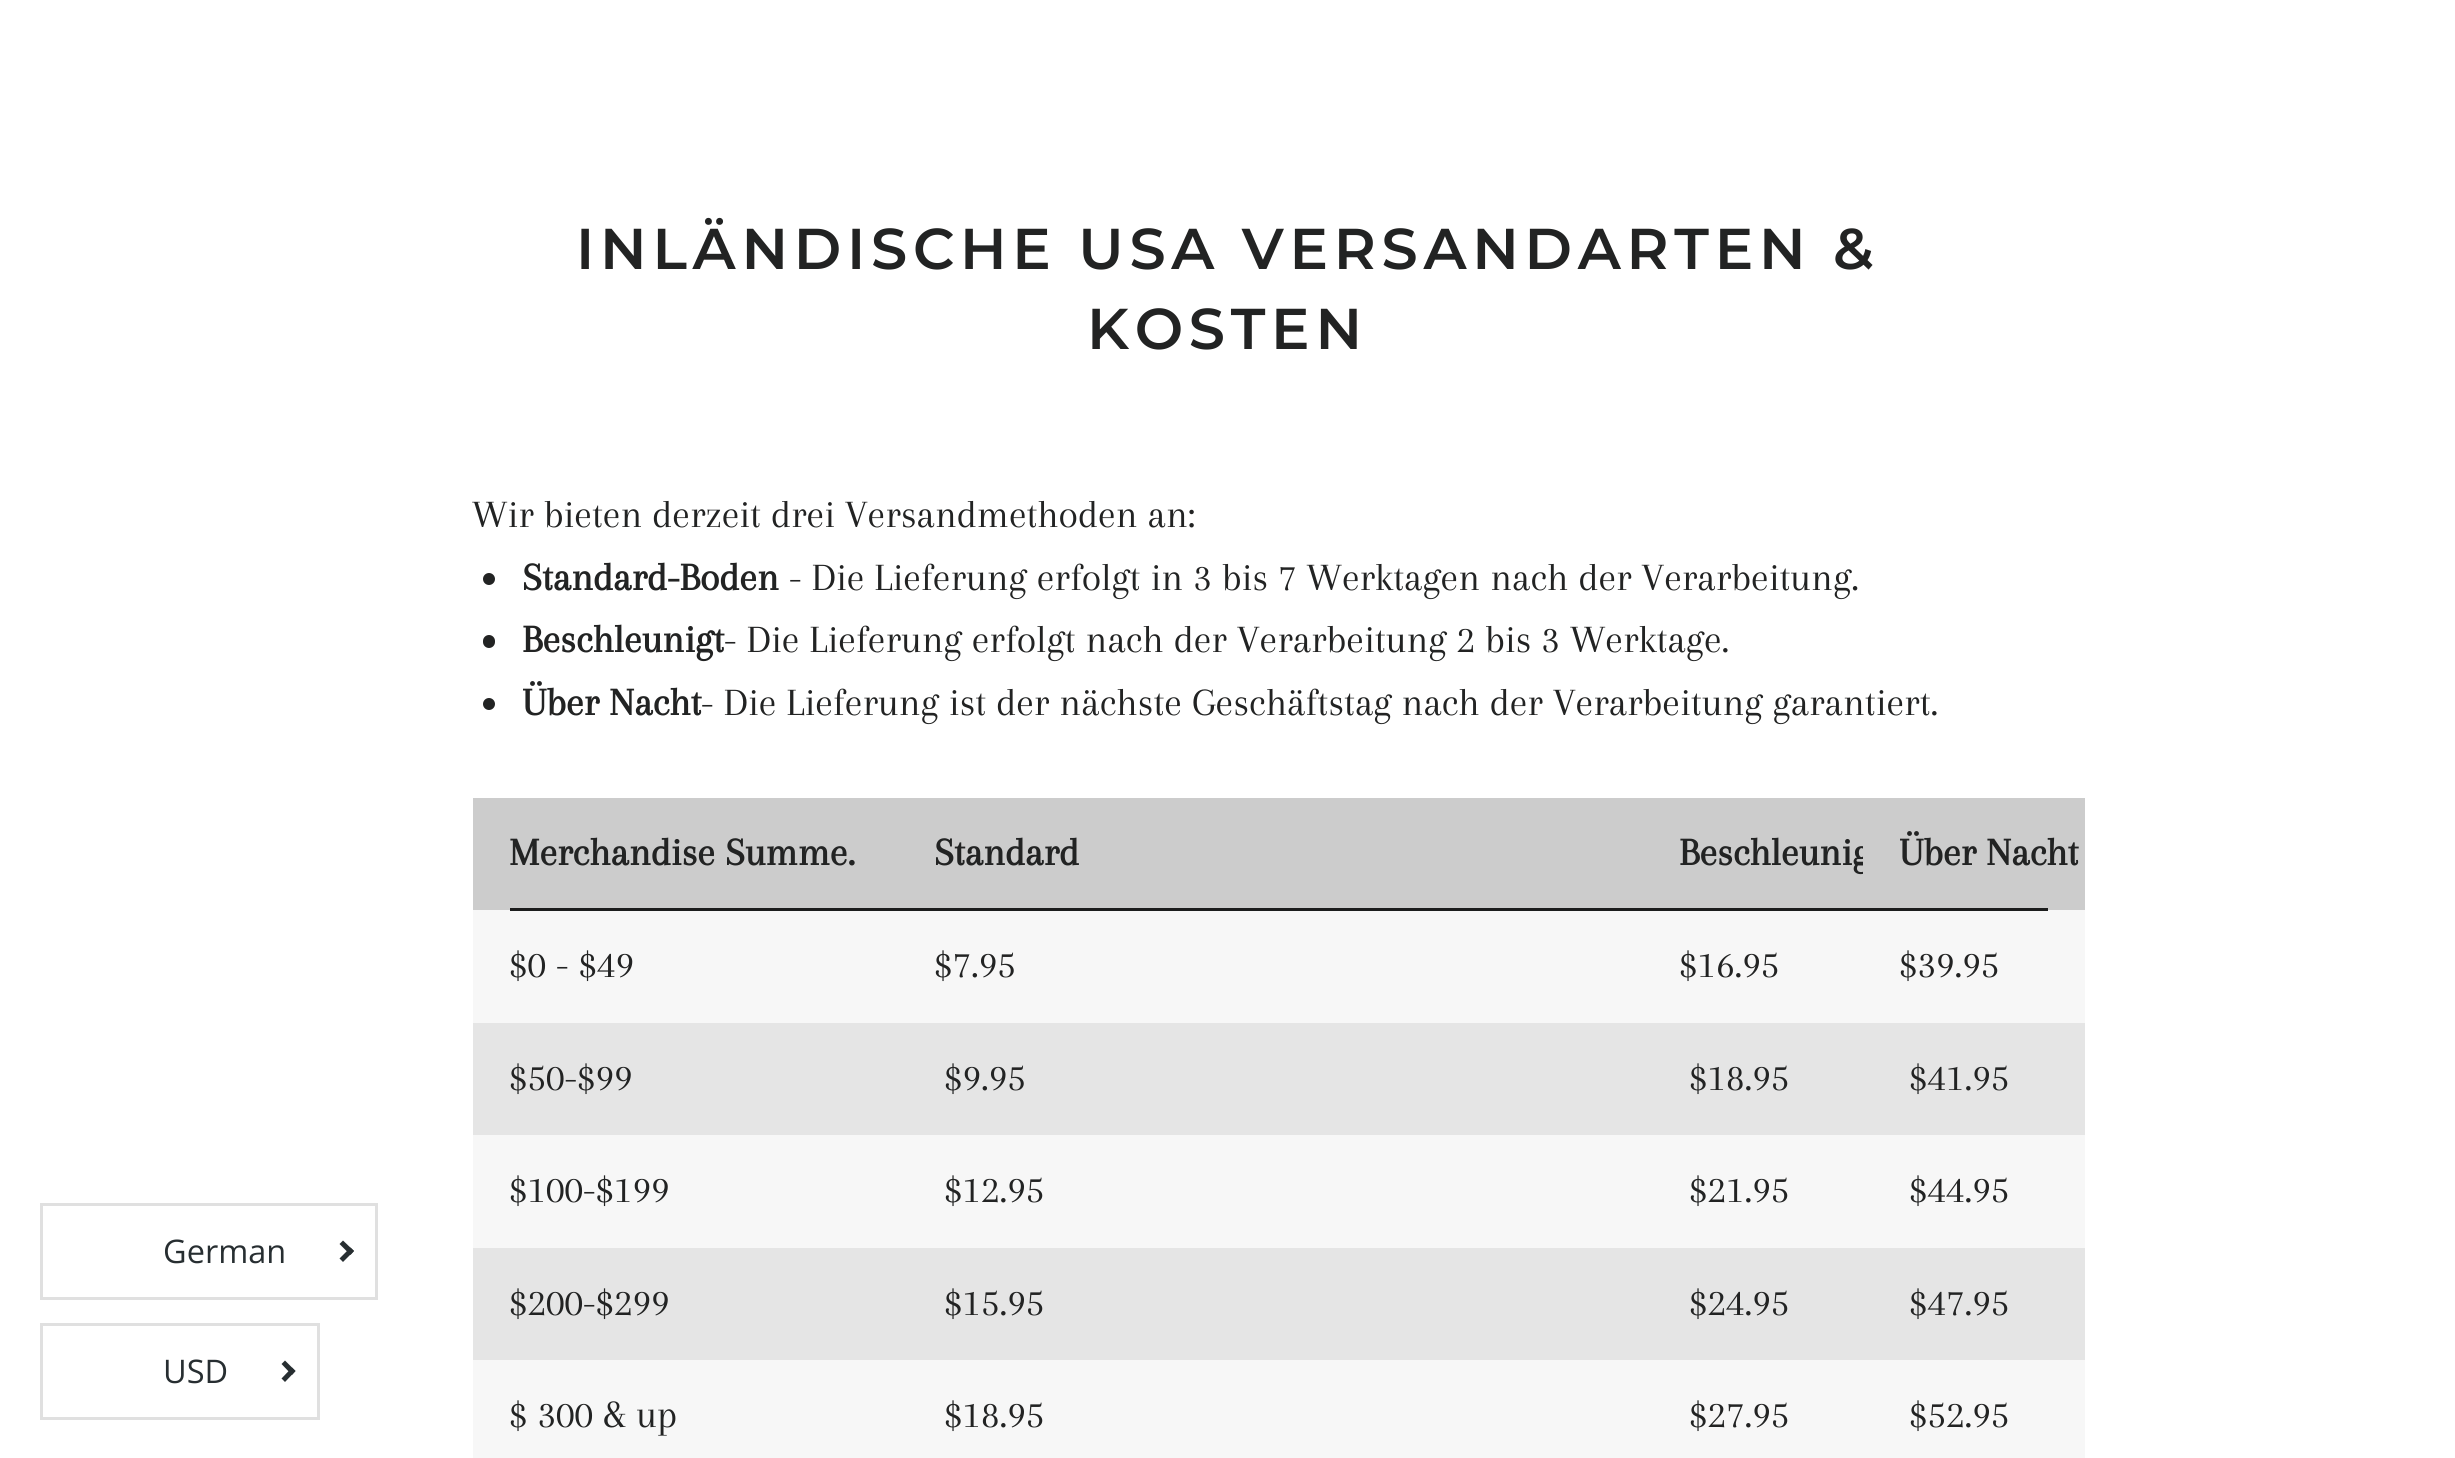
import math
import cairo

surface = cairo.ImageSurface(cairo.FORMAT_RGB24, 2455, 1458)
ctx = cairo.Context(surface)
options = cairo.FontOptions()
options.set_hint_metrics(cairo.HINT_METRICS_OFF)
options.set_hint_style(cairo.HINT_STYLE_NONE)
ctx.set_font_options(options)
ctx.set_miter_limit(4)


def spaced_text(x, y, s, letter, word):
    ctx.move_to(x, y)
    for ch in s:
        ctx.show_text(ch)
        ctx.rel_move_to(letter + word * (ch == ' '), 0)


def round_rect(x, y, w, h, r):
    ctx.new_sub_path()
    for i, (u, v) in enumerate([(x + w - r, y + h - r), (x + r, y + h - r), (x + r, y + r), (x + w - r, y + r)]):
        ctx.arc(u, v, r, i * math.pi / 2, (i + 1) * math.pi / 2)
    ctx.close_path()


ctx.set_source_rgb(1, 1, 1)
ctx.paint()
ctx.rectangle(41.5, 1204.5, 335, 94)
ctx.set_source_rgb(0.878, 0.878, 0.878)
ctx.set_line_width(3)
ctx.stroke()
ctx.select_font_face("Open Sans")
ctx.set_font_size(32.5)
ctx.set_source_rgb(0.153, 0.18, 0.192)
ctx.move_to(163, 1263)
ctx.show_text("German")
ctx.new_path()
ctx.move_to(343, 1240.5)
ctx.line_to(354, 1251)
ctx.line_to(350.5, 1255)
ctx.line_to(339.5, 1244)
ctx.close_path()
ctx.fill()
ctx.new_path()
ctx.move_to(350.5, 1247.5)
ctx.line_to(354, 1251)
ctx.line_to(343, 1262)
ctx.line_to(339.5, 1258.5)
ctx.close_path()
ctx.fill()
ctx.select_font_face("Montserrat SemiBold")
ctx.set_font_size(57.5)
ctx.set_source_rgb(0.133, 0.137, 0.137)
spaced_text(576, 269, "INLÄNDISCHE USA VERSANDARTEN &", 5.75, 0)
spaced_text(1087, 349, "KOSTEN", 5.75, 0)
ctx.select_font_face("Arapey")
ctx.set_font_size(40)
ctx.move_to(472, 527)
ctx.show_text("Wir bieten derzeit drei Versandmethoden an:")
ctx.new_path()
ctx.arc(489, 579, 6, 0, 2 * math.pi)
ctx.fill()
ctx.select_font_face("Arapey", cairo.FONT_SLANT_NORMAL, cairo.FONT_WEIGHT_BOLD)
ctx.move_to(522, 590)
ctx.show_text("Standard-Boden")
ctx.select_font_face("Arapey")
ctx.move_to(789, 590)
ctx.show_text("- Die Lieferung erfolgt in 3 bis 7 Werktagen nach der Verarbeitung.")
round_rect(483, 635, 12, 13, 6)
ctx.fill()
ctx.select_font_face("Arapey", cairo.FONT_SLANT_NORMAL, cairo.FONT_WEIGHT_BOLD)
ctx.move_to(522, 652)
ctx.show_text("Beschleunigt")
ctx.select_font_face("Arapey")
ctx.move_to(724, 652)
ctx.show_text("- Die Lieferung erfolgt nach der Verarbeitung 2 bis 3 Werktage.")
ctx.new_path()
ctx.arc(489, 704, 6, 0, 2 * math.pi)
ctx.fill()
ctx.select_font_face("Arapey", cairo.FONT_SLANT_NORMAL, cairo.FONT_WEIGHT_BOLD)
ctx.move_to(522, 715)
ctx.show_text("Über Nacht")
ctx.select_font_face("Arapey")
ctx.move_to(701, 715)
ctx.show_text("- Die Lieferung ist der nächste Geschäftstag nach der Verarbeitung garantiert.")
ctx.set_source_rgb(0.965, 0.965, 0.965)
ctx.rectangle(473, 910, 1612, 548)
ctx.fill()
ctx.set_source_rgb(0.8, 0.8, 0.8)
ctx.rectangle(473, 798, 425, 112)
ctx.fill()
ctx.select_font_face("Arapey", cairo.FONT_SLANT_NORMAL, cairo.FONT_WEIGHT_BOLD)
ctx.set_source_rgb(0.133, 0.137, 0.137)
ctx.move_to(509, 865)
ctx.show_text("Merchandise Summe.")
ctx.set_source_rgb(0.11, 0.114, 0.114)
ctx.rectangle(510, 908, 1315, 3)
ctx.fill()
ctx.set_source_rgb(0.8, 0.8, 0.8)
ctx.rectangle(898, 798, 965, 110)
ctx.fill()
ctx.set_source_rgb(0.133, 0.137, 0.137)
ctx.move_to(934, 865)
ctx.show_text("Standard")
ctx.move_to(1679, 865)
ctx.show_text("Beschleunig")
ctx.set_source_rgb(0.8, 0.8, 0.8)
ctx.rectangle(1863, 798, 222, 112)
ctx.fill()
ctx.set_source_rgb(0.133, 0.137, 0.137)
ctx.move_to(1899, 865)
ctx.show_text("Über Nacht")
ctx.set_source_rgb(0.11, 0.114, 0.114)
ctx.rectangle(1825, 908, 223, 3)
ctx.fill()
ctx.select_font_face("Arapey")
ctx.set_source_rgb(0.133, 0.137, 0.137)
ctx.move_to(509, 977)
ctx.show_text("$0 - $49")
ctx.move_to(934, 977)
ctx.show_text("$7.95")
ctx.move_to(1679, 977)
ctx.show_text("$16.95")
ctx.move_to(1899, 977)
ctx.show_text("$39.95")
ctx.set_source_rgb(0.898, 0.898, 0.898)
ctx.rectangle(473, 1023, 1612, 112)
ctx.fill()
ctx.set_source_rgb(0.133, 0.137, 0.137)
ctx.move_to(509, 1090)
ctx.show_text("$50-$99")
ctx.move_to(944, 1090)
ctx.show_text("$9.95")
ctx.move_to(1689, 1090)
ctx.show_text("$18.95")
ctx.move_to(1909, 1090)
ctx.show_text("$41.95")
ctx.move_to(509, 1202)
ctx.show_text("$100-$199")
ctx.move_to(944, 1202)
ctx.show_text("$12.95")
ctx.move_to(1689, 1202)
ctx.show_text("$21.95")
ctx.move_to(1909, 1202)
ctx.show_text("$44.95")
ctx.set_source_rgb(0.898, 0.898, 0.898)
ctx.rectangle(473, 1248, 1612, 112)
ctx.fill()
ctx.set_source_rgb(0.133, 0.137, 0.137)
ctx.move_to(509, 1315)
ctx.show_text("$200-$299")
ctx.move_to(944, 1315)
ctx.show_text("$15.95")
ctx.move_to(1689, 1315)
ctx.show_text("$24.95")
ctx.move_to(1909, 1315)
ctx.show_text("$47.95")
ctx.move_to(509, 1427)
ctx.show_text("$ 300 & up")
ctx.move_to(944, 1427)
ctx.show_text("$18.95")
ctx.move_to(1689, 1427)
ctx.show_text("$27.95")
ctx.move_to(1909, 1427)
ctx.show_text("$52.95")
ctx.rectangle(41.5, 1324.5, 277, 94)
ctx.set_source_rgb(0.878, 0.878, 0.878)
ctx.stroke()
ctx.select_font_face("Open Sans")
ctx.set_font_size(32.5)
ctx.set_source_rgb(0.153, 0.18, 0.192)
ctx.move_to(163, 1383)
ctx.show_text("USD")
ctx.new_path()
ctx.move_to(285, 1360.5)
ctx.line_to(295.5, 1371)
ctx.line_to(292, 1375)
ctx.line_to(281.5, 1364)
ctx.close_path()
ctx.fill()
ctx.new_path()
ctx.move_to(292, 1367.5)
ctx.line_to(295.5, 1371)
ctx.line_to(285, 1382)
ctx.line_to(281.5, 1378.5)
ctx.close_path()
ctx.fill()
surface.write_to_png("page.png")
